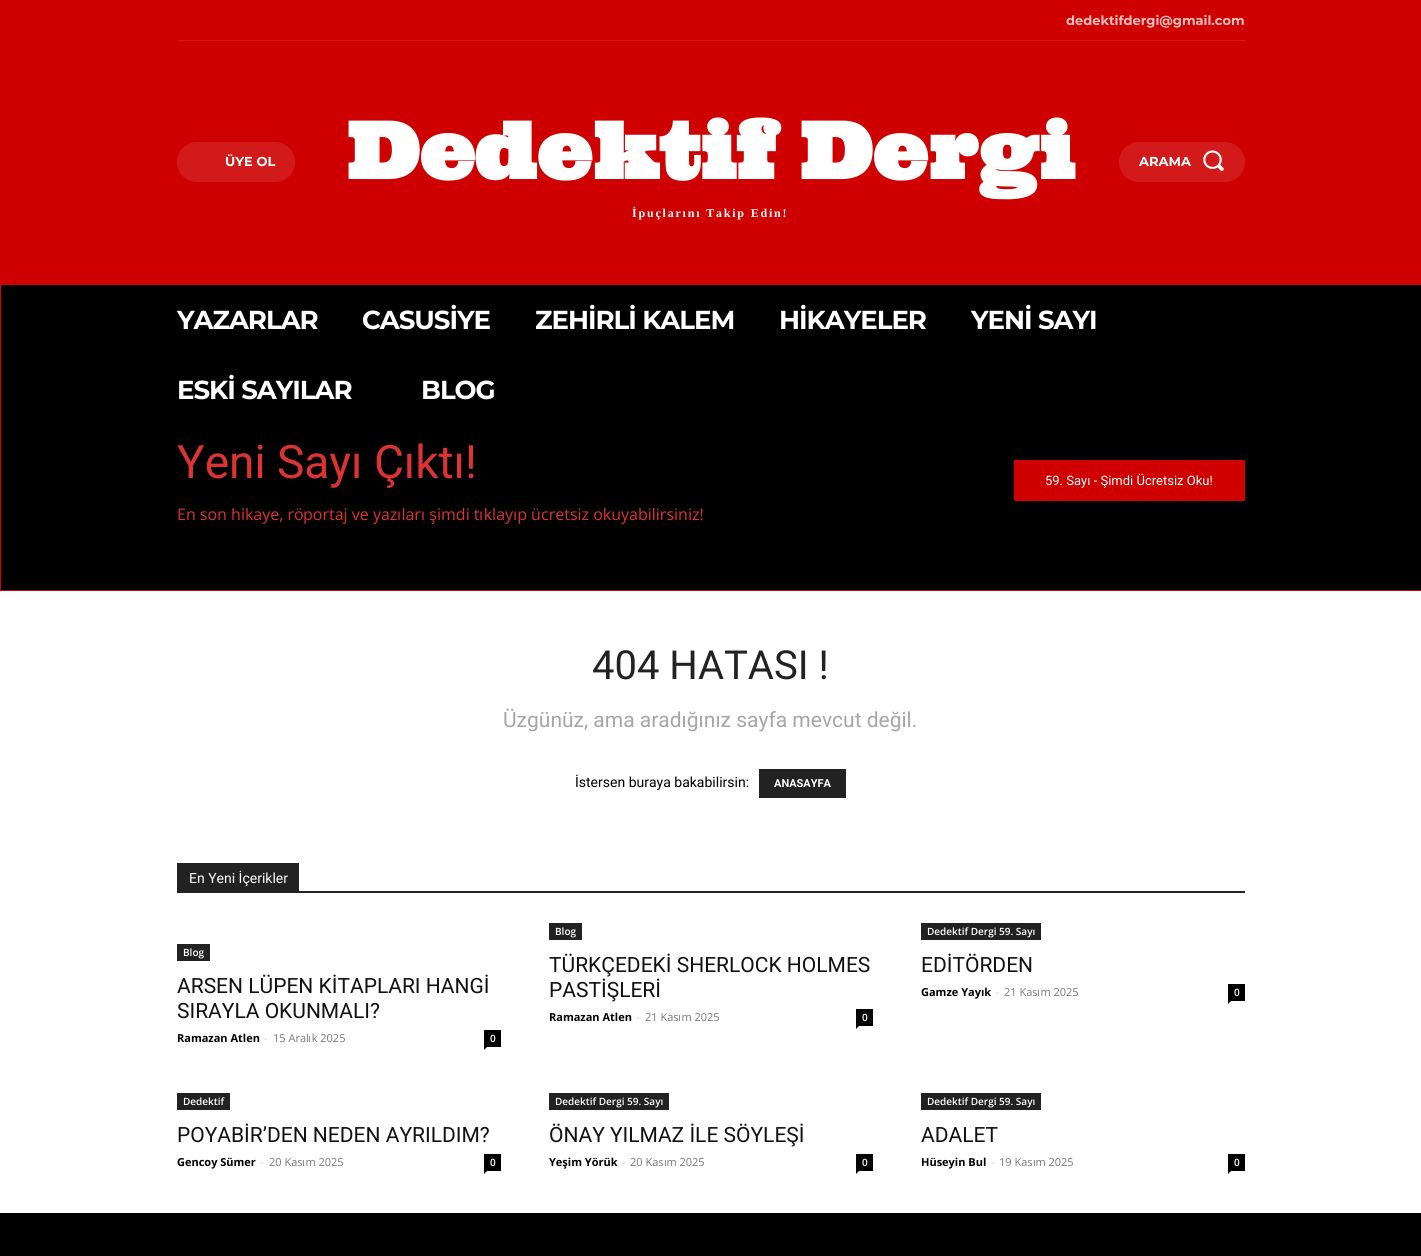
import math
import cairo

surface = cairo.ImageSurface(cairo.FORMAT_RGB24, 1421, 1256)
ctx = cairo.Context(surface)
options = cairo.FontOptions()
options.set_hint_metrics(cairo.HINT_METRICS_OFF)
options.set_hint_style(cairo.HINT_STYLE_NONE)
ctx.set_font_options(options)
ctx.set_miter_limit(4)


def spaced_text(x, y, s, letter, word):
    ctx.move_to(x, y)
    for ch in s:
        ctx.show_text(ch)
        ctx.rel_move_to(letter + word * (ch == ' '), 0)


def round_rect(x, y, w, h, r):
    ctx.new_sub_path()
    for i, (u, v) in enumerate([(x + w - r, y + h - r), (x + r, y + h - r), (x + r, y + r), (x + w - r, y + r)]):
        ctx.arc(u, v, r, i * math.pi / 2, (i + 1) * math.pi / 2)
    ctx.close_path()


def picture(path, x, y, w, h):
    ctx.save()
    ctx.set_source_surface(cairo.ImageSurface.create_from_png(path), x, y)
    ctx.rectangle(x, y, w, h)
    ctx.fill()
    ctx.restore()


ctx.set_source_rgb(1, 1, 1)
ctx.paint()
ctx.set_source_rgb(0.808, 0, 0)
ctx.rectangle(0, 0, 1421, 591)
ctx.fill()
ctx.set_source_rgb(0.827, 0.102, 0.102)
ctx.rectangle(177, 40, 1068, 1)
ctx.fill()
ctx.select_font_face("Montserrat", cairo.FONT_SLANT_NORMAL, cairo.FONT_WEIGHT_BOLD)
ctx.set_font_size(13)
ctx.set_source_rgb(0.953, 0.749, 0.749)
ctx.move_to(1066, 25)
ctx.show_text("dedektifdergi@gmail.com")
ctx.set_source_rgb(0.827, 0.102, 0.102)
round_rect(177, 142, 118, 40, 20)
ctx.fill()
ctx.set_source_rgb(1, 1, 1)
ctx.move_to(225, 166)
ctx.show_text("ÜYE OL")
ctx.select_font_face("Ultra", cairo.FONT_SLANT_NORMAL, cairo.FONT_WEIGHT_BOLD)
ctx.set_font_size(78)
ctx.move_to(347, 179)
ctx.show_text("Dedektif Dergi")
ctx.select_font_face("Liberation Serif", cairo.FONT_SLANT_NORMAL, cairo.FONT_WEIGHT_BOLD)
ctx.set_font_size(12)
spaced_text(632, 217, "İpuçlarını Takip Edin!", 1.8, 0)
ctx.set_source_rgb(0.827, 0.102, 0.102)
round_rect(1119, 142, 126, 40, 20)
ctx.fill()
ctx.select_font_face("Montserrat", cairo.FONT_SLANT_NORMAL, cairo.FONT_WEIGHT_BOLD)
ctx.set_font_size(13)
ctx.set_source_rgb(1, 1, 1)
ctx.move_to(1139, 166)
ctx.show_text("ARAMA")
picture("img1.png", 1203, 150, 21, 21)
ctx.set_source_rgb(0, 0, 0)
ctx.rectangle(1, 285, 1420, 305)
ctx.fill()
ctx.set_font_size(26)
ctx.set_source_rgb(1, 1, 1)
spaced_text(177, 329, "YAZARLAR", -1, 0)
spaced_text(362, 329, "CASUSİYE", -1, 0)
spaced_text(535, 329, "ZEHİRLİ KALEM", -1, 0)
spaced_text(779, 329, "HİKAYELER", -1, 0)
spaced_text(971, 329, "YENİ SAYI", -1, 0)
spaced_text(177, 399, "ESKİ SAYILAR", -1, 0)
spaced_text(421, 399, "BLOG", -1, 0)
ctx.select_font_face("Roboto")
ctx.set_font_size(46)
ctx.set_source_rgb(0.867, 0.2, 0.2)
ctx.move_to(177, 478)
ctx.show_text("Yeni Sayı Çıktı!")
ctx.select_font_face("Open Sans")
ctx.set_font_size(16)
ctx.move_to(177, 520)
ctx.show_text("En son hikaye, r")
ctx.select_font_face("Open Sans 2")
ctx.move_to(294, 520)
ctx.show_text("ö")
ctx.select_font_face("Open Sans")
ctx.move_to(303, 520)
ctx.show_text("portaj ve yaz lar")
ctx.move_to(437, 520)
ctx.show_text("imdi t klay p")
ctx.select_font_face("Open Sans 2")
ctx.move_to(531, 520)
ctx.show_text("ü")
ctx.select_font_face("Open Sans")
ctx.move_to(541, 520)
ctx.show_text("cretsiz okuyabilirsiniz!")
ctx.select_font_face("Open Sans 2")
ctx.move_to(397, 520)
ctx.show_text("ı")
ctx.move_to(421, 520)
ctx.show_text("ı ş")
ctx.move_to(479, 520)
ctx.show_text("ı")
ctx.move_to(513, 520)
ctx.show_text("ı")
ctx.set_source_rgb(0.808, 0, 0)
ctx.rectangle(1014, 460, 231, 41)
ctx.fill()
ctx.select_font_face("Roboto")
ctx.set_font_size(13)
ctx.set_source_rgb(1, 1, 1)
ctx.move_to(1045, 485)
ctx.show_text("59. Sayı - Şimdi Ücretsiz Oku!")
ctx.set_font_size(40)
ctx.set_source_rgb(0.133, 0.133, 0.133)
ctx.move_to(592, 679)
ctx.show_text("404 HATASI !")
ctx.set_font_size(21)
ctx.set_source_rgb(0.651, 0.651, 0.651)
ctx.move_to(503, 727)
ctx.show_text("Üzgünüz, ama aradığınız sayfa mevcut değil.")
ctx.set_font_size(14)
ctx.set_source_rgb(0, 0, 0)
ctx.move_to(575, 787)
ctx.show_text("İstersen buraya bakabilirsin:")
ctx.set_source_rgb(0.133, 0.133, 0.133)
ctx.rectangle(759, 769, 87, 29)
ctx.fill()
ctx.select_font_face("Roboto", cairo.FONT_SLANT_NORMAL, cairo.FONT_WEIGHT_BOLD)
ctx.set_font_size(11)
ctx.set_source_rgb(1, 1, 1)
ctx.move_to(774, 787)
ctx.show_text("ANASAYFA")
ctx.set_source_rgb(0.133, 0.133, 0.133)
ctx.rectangle(177, 891, 1068, 2)
ctx.fill()
ctx.rectangle(177, 863, 122, 28)
ctx.fill()
ctx.select_font_face("Roboto")
ctx.set_font_size(14)
ctx.set_source_rgb(1, 1, 1)
ctx.move_to(189, 883)
ctx.show_text("En Yeni İçerikler")
ctx.set_source_rgb(0.133, 0.133, 0.133)
ctx.rectangle(177, 944, 33, 17)
ctx.fill()
ctx.select_font_face("Open Sans SemiBold")
ctx.set_font_size(10)
ctx.set_source_rgb(1, 1, 1)
ctx.move_to(183, 956)
ctx.show_text("Blog")
ctx.select_font_face("Roboto")
ctx.set_font_size(21)
ctx.set_source_rgb(0.067, 0.067, 0.067)
ctx.move_to(177, 993)
ctx.show_text("ARSEN LÜPEN KİTAPLARI HANGİ")
ctx.move_to(177, 1018)
ctx.show_text("SIRAYLA OKUNMALI?")
ctx.select_font_face("Open Sans", cairo.FONT_SLANT_NORMAL, cairo.FONT_WEIGHT_BOLD)
ctx.set_font_size(11)
ctx.set_source_rgb(0, 0, 0)
ctx.move_to(177, 1042)
ctx.show_text("Ramazan Atlen")
ctx.select_font_face("Open Sans")
ctx.set_source_rgb(0.8, 0.8, 0.8)
ctx.move_to(264, 1042)
ctx.show_text("-")
ctx.set_source_rgb(0.463, 0.463, 0.463)
ctx.move_to(273, 1042)
ctx.show_text("15 Aral k 2025")
ctx.select_font_face("Open Sans 2")
ctx.move_to(308, 1042)
ctx.show_text("ı")
ctx.set_source_rgb(0, 0, 0)
ctx.rectangle(484, 1030, 17, 17)
ctx.fill()
ctx.select_font_face("Open Sans SemiBold")
ctx.set_font_size(10)
ctx.set_source_rgb(1, 1, 1)
ctx.move_to(490, 1042)
ctx.show_text("0")
ctx.set_source_rgb(0, 0, 0)
ctx.new_path()
ctx.move_to(484, 1047)
ctx.line_to(487, 1047)
ctx.line_to(484, 1050)
ctx.close_path()
ctx.fill()
ctx.set_source_rgb(0.133, 0.133, 0.133)
ctx.rectangle(549, 923, 33, 17)
ctx.fill()
ctx.set_source_rgb(1, 1, 1)
ctx.move_to(555, 935)
ctx.show_text("Blog")
ctx.select_font_face("Roboto")
ctx.set_font_size(21)
ctx.set_source_rgb(0.067, 0.067, 0.067)
ctx.move_to(549, 972)
ctx.show_text("TÜRKÇEDEKİ SHERLOCK HOLMES")
ctx.move_to(549, 997)
ctx.show_text("PASTİŞLERİ")
ctx.select_font_face("Open Sans", cairo.FONT_SLANT_NORMAL, cairo.FONT_WEIGHT_BOLD)
ctx.set_font_size(11)
ctx.set_source_rgb(0, 0, 0)
ctx.move_to(549, 1021)
ctx.show_text("Ramazan Atlen")
ctx.select_font_face("Open Sans")
ctx.set_source_rgb(0.8, 0.8, 0.8)
ctx.move_to(636, 1021)
ctx.show_text("-")
ctx.set_source_rgb(0.463, 0.463, 0.463)
ctx.move_to(645, 1021)
ctx.show_text("21 Kas m 2025")
ctx.select_font_face("Open Sans 2")
ctx.move_to(678, 1021)
ctx.show_text("ı")
ctx.set_source_rgb(0, 0, 0)
ctx.rectangle(856, 1009, 17, 17)
ctx.fill()
ctx.select_font_face("Open Sans SemiBold")
ctx.set_font_size(10)
ctx.set_source_rgb(1, 1, 1)
ctx.move_to(862, 1021)
ctx.show_text("0")
ctx.set_source_rgb(0, 0, 0)
ctx.new_path()
ctx.move_to(856, 1026)
ctx.line_to(859, 1026)
ctx.line_to(856, 1029)
ctx.close_path()
ctx.fill()
ctx.set_source_rgb(0.133, 0.133, 0.133)
ctx.rectangle(921, 923, 120, 17)
ctx.fill()
ctx.set_source_rgb(1, 1, 1)
ctx.move_to(927, 935)
ctx.show_text("Dedektif Dergi 59. Sayı")
ctx.select_font_face("Roboto")
ctx.set_font_size(21)
ctx.set_source_rgb(0.067, 0.067, 0.067)
ctx.move_to(921, 972)
ctx.show_text("EDİTÖRDEN")
ctx.select_font_face("Open Sans", cairo.FONT_SLANT_NORMAL, cairo.FONT_WEIGHT_BOLD)
ctx.set_font_size(11)
ctx.set_source_rgb(0, 0, 0)
ctx.move_to(921, 996)
ctx.show_text("Gamze Yayık")
ctx.select_font_face("Open Sans")
ctx.set_source_rgb(0.8, 0.8, 0.8)
ctx.move_to(995, 996)
ctx.show_text("-")
ctx.set_source_rgb(0.463, 0.463, 0.463)
ctx.move_to(1004, 996)
ctx.show_text("21 Kas m 2025")
ctx.select_font_face("Open Sans 2")
ctx.move_to(1037, 996)
ctx.show_text("ı")
ctx.set_source_rgb(0, 0, 0)
ctx.rectangle(1228, 984, 17, 17)
ctx.fill()
ctx.select_font_face("Open Sans SemiBold")
ctx.set_font_size(10)
ctx.set_source_rgb(1, 1, 1)
ctx.move_to(1234, 996)
ctx.show_text("0")
ctx.set_source_rgb(0, 0, 0)
ctx.new_path()
ctx.move_to(1228, 1001)
ctx.line_to(1231, 1001)
ctx.line_to(1228, 1004)
ctx.close_path()
ctx.fill()
ctx.set_source_rgb(0.133, 0.133, 0.133)
ctx.rectangle(177, 1093, 53, 17)
ctx.fill()
ctx.set_source_rgb(1, 1, 1)
ctx.move_to(183, 1105)
ctx.show_text("Dedektif")
ctx.select_font_face("Roboto")
ctx.set_font_size(21)
ctx.set_source_rgb(0.067, 0.067, 0.067)
ctx.move_to(177, 1142)
ctx.show_text("POYABİR’DEN NEDEN AYRILDIM?")
ctx.select_font_face("Open Sans", cairo.FONT_SLANT_NORMAL, cairo.FONT_WEIGHT_BOLD)
ctx.set_font_size(11)
ctx.set_source_rgb(0, 0, 0)
ctx.move_to(177, 1166)
ctx.show_text("Gencoy Sümer")
ctx.select_font_face("Open Sans")
ctx.set_source_rgb(0.8, 0.8, 0.8)
ctx.move_to(260, 1166)
ctx.show_text("-")
ctx.set_source_rgb(0.463, 0.463, 0.463)
ctx.move_to(269, 1166)
ctx.show_text("20 Kas m 2025")
ctx.select_font_face("Open Sans 2")
ctx.move_to(302, 1166)
ctx.show_text("ı")
ctx.set_source_rgb(0, 0, 0)
ctx.rectangle(484, 1154, 17, 17)
ctx.fill()
ctx.select_font_face("Open Sans SemiBold")
ctx.set_font_size(10)
ctx.set_source_rgb(1, 1, 1)
ctx.move_to(490, 1166)
ctx.show_text("0")
ctx.set_source_rgb(0, 0, 0)
ctx.new_path()
ctx.move_to(484, 1171)
ctx.line_to(487, 1171)
ctx.line_to(484, 1174)
ctx.close_path()
ctx.fill()
ctx.set_source_rgb(0.133, 0.133, 0.133)
ctx.rectangle(549, 1093, 120, 17)
ctx.fill()
ctx.set_source_rgb(1, 1, 1)
ctx.move_to(555, 1105)
ctx.show_text("Dedektif Dergi 59. Sayı")
ctx.select_font_face("Roboto")
ctx.set_font_size(21)
ctx.set_source_rgb(0.067, 0.067, 0.067)
ctx.move_to(549, 1142)
ctx.show_text("ÖNAY YILMAZ İLE SÖYLEŞİ")
ctx.select_font_face("Open Sans", cairo.FONT_SLANT_NORMAL, cairo.FONT_WEIGHT_BOLD)
ctx.set_font_size(11)
ctx.set_source_rgb(0, 0, 0)
ctx.move_to(549, 1166)
ctx.show_text("Yeşim Yörük")
ctx.select_font_face("Open Sans")
ctx.set_source_rgb(0.8, 0.8, 0.8)
ctx.move_to(622, 1166)
ctx.show_text("-")
ctx.set_source_rgb(0.463, 0.463, 0.463)
ctx.move_to(630, 1166)
ctx.show_text("20 Kas m 2025")
ctx.select_font_face("Open Sans 2")
ctx.move_to(664, 1166)
ctx.show_text("ı")
ctx.set_source_rgb(0, 0, 0)
ctx.rectangle(856, 1154, 17, 17)
ctx.fill()
ctx.select_font_face("Open Sans SemiBold")
ctx.set_font_size(10)
ctx.set_source_rgb(1, 1, 1)
ctx.move_to(862, 1166)
ctx.show_text("0")
ctx.set_source_rgb(0, 0, 0)
ctx.new_path()
ctx.move_to(856, 1171)
ctx.line_to(859, 1171)
ctx.line_to(856, 1174)
ctx.close_path()
ctx.fill()
ctx.set_source_rgb(0.133, 0.133, 0.133)
ctx.rectangle(921, 1093, 120, 17)
ctx.fill()
ctx.set_source_rgb(1, 1, 1)
ctx.move_to(927, 1105)
ctx.show_text("Dedektif Dergi 59. Sayı")
ctx.select_font_face("Roboto")
ctx.set_font_size(21)
ctx.set_source_rgb(0.067, 0.067, 0.067)
ctx.move_to(921, 1142)
ctx.show_text("ADALET")
ctx.select_font_face("Open Sans", cairo.FONT_SLANT_NORMAL, cairo.FONT_WEIGHT_BOLD)
ctx.set_font_size(11)
ctx.set_source_rgb(0, 0, 0)
ctx.move_to(921, 1166)
ctx.show_text("Hüseyin Bul")
ctx.select_font_face("Open Sans")
ctx.set_source_rgb(0.8, 0.8, 0.8)
ctx.move_to(991, 1166)
ctx.show_text("-")
ctx.set_source_rgb(0.463, 0.463, 0.463)
ctx.move_to(999, 1166)
ctx.show_text("19 Kas m 2025")
ctx.select_font_face("Open Sans 2")
ctx.move_to(1033, 1166)
ctx.show_text("ı")
ctx.set_source_rgb(0, 0, 0)
ctx.rectangle(1228, 1154, 17, 17)
ctx.fill()
ctx.select_font_face("Open Sans SemiBold")
ctx.set_font_size(10)
ctx.set_source_rgb(1, 1, 1)
ctx.move_to(1234, 1166)
ctx.show_text("0")
ctx.set_source_rgb(0, 0, 0)
ctx.new_path()
ctx.move_to(1228, 1171)
ctx.line_to(1231, 1171)
ctx.line_to(1228, 1174)
ctx.close_path()
ctx.fill()
ctx.rectangle(0, 1213, 1421, 43)
ctx.fill()
surface.write_to_png("page.png")
